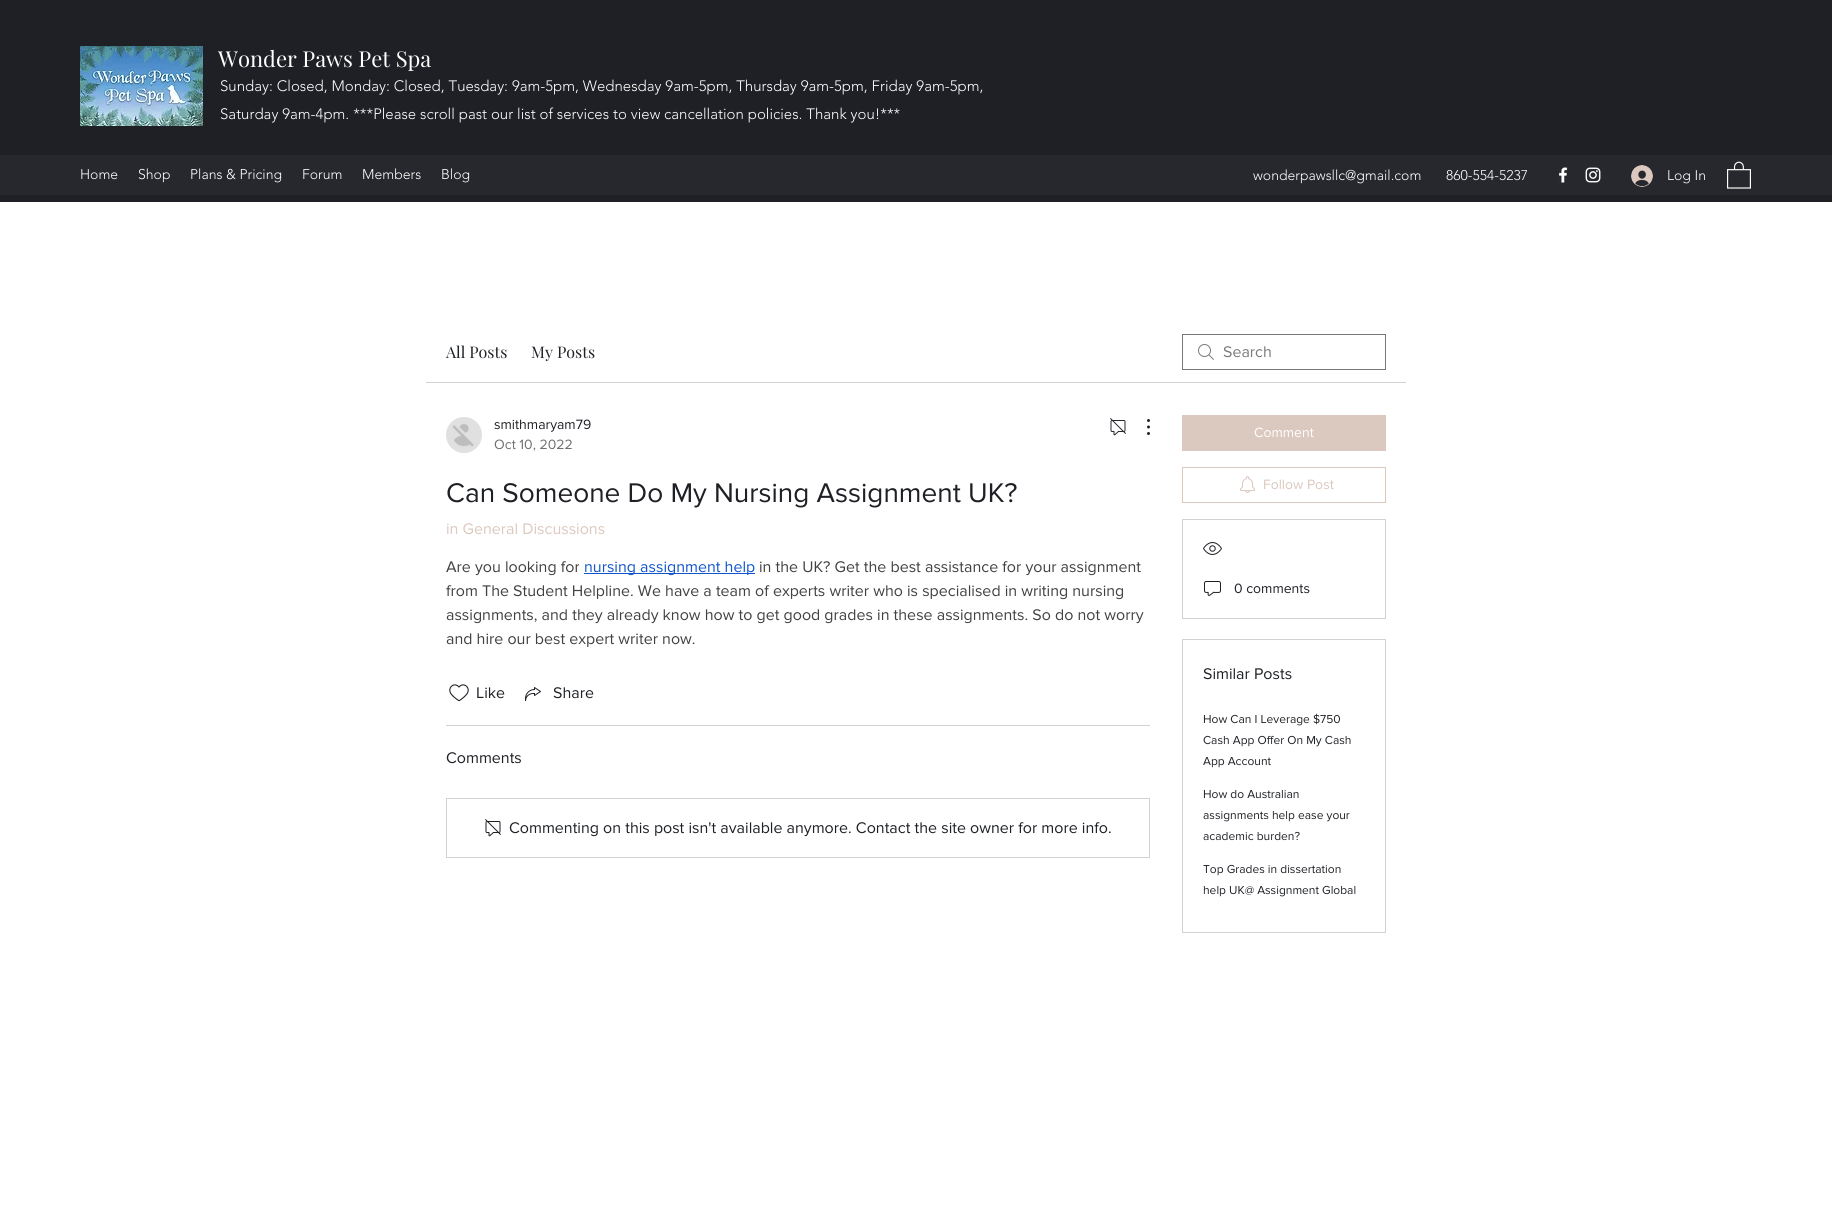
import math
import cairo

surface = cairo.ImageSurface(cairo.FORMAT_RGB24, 1832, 1207)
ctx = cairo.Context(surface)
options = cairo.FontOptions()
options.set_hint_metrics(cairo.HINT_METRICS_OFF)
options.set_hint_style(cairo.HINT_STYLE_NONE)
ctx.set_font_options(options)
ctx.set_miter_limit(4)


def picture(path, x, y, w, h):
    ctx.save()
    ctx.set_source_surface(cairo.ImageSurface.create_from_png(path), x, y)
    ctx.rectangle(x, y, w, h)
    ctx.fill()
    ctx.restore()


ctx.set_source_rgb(1, 1, 1)
ctx.paint()
ctx.set_source_rgb(0.118, 0.125, 0.145)
ctx.rectangle(0, 0, 1832, 202)
ctx.fill()
picture("img1.png", 80, 46, 123, 80)
ctx.select_font_face("Playfair Display")
ctx.set_font_size(22)
ctx.set_source_rgb(1, 1, 1)
ctx.move_to(218, 67)
ctx.show_text("Wonder Paws Pet Spa")
ctx.select_font_face("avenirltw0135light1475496 Light")
ctx.set_font_size(15)
ctx.move_to(220, 91)
ctx.show_text("Sunday: Closed, Monday: Closed, Tuesday: 9am-5pm, Wednesday 9am-5pm, Thursday 9am-5pm, Friday 9am-5pm,")
ctx.move_to(220, 119)
ctx.show_text("Saturday 9am-4pm. ***Please scroll past our list of services to view cancellation policies. Thank you!***")
ctx.set_source_rgb(0.149, 0.157, 0.176)
ctx.rectangle(0, 155, 1832, 40)
ctx.fill()
ctx.set_font_size(14)
ctx.set_source_rgb(1, 1, 1)
ctx.move_to(80, 179)
ctx.show_text("Home")
ctx.move_to(138, 179)
ctx.show_text("Shop")
ctx.move_to(190, 179)
ctx.show_text("Plans & Pricing")
ctx.move_to(302, 179)
ctx.show_text("Forum")
ctx.move_to(362, 179)
ctx.show_text("Members")
ctx.move_to(441, 179)
ctx.show_text("Blog")
ctx.move_to(1253, 180)
ctx.show_text("wonderpawsllc@gmail.com")
ctx.move_to(1446, 180)
ctx.show_text("860-554-5237")
picture("img2.png", 1559, 167, 9, 16)
picture("img3.png", 1585, 167, 16, 16)
picture("img4.png", 1631, 165, 22, 22)
ctx.move_to(1667, 180)
ctx.show_text("Log In")
picture("img5.png", 1727, 161, 24, 28)
ctx.set_source_rgb(0.824, 0.824, 0.827)
ctx.rectangle(426, 382, 980, 1)
ctx.fill()
ctx.select_font_face("Playfair Display")
ctx.set_font_size(16)
ctx.set_source_rgb(0.118, 0.125, 0.145)
ctx.move_to(446, 358)
ctx.show_text("All Posts")
ctx.move_to(531, 358)
ctx.show_text("My Posts")
picture("img6.png", 1198, 344, 16, 16)
ctx.rectangle(1182.5, 334.5, 203, 35)
ctx.set_source_rgb(0.471, 0.475, 0.486)
ctx.set_line_width(1)
ctx.stroke()
ctx.select_font_face("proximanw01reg")
ctx.move_to(1223, 357)
ctx.show_text("Search")
picture("img7.png", 446, 417, 36, 36)
ctx.set_font_size(14)
ctx.set_source_rgb(0.118, 0.125, 0.145)
ctx.move_to(494, 429)
ctx.show_text("smithmaryam79")
ctx.set_source_rgb(0.435, 0.439, 0.451)
ctx.move_to(494, 449)
ctx.show_text("Oct 10, 2022")
picture("img8.png", 1110, 418, 16, 18)
picture("img9.png", 1147, 419, 3, 16)
ctx.set_font_size(28)
ctx.set_source_rgb(0.118, 0.125, 0.145)
ctx.move_to(446, 502)
ctx.show_text("Can Someone Do My Nursing Assignment UK?")
ctx.set_font_size(16)
ctx.set_source_rgb(0.859, 0.784, 0.745)
ctx.move_to(446, 534)
ctx.show_text("in General Discussions")
ctx.set_source_rgb(0.255, 0.255, 0.255)
ctx.move_to(446, 572)
ctx.show_text("Are you looking for")
ctx.set_source_rgb(0.067, 0.333, 0.8)
ctx.rectangle(584, 573, 171, 1)
ctx.fill()
ctx.move_to(584, 572)
ctx.show_text("nursing assignment help")
ctx.set_source_rgb(0.255, 0.255, 0.255)
ctx.move_to(759, 572)
ctx.show_text("in the UK? Get the best assistance for your assignment")
ctx.move_to(446, 596)
ctx.show_text("from The Student Helpline. We have a team of experts writer who is specialised in writing nursing")
ctx.move_to(446, 620)
ctx.show_text("assignments, and they already know how to get good grades in these assignments. So do not worry")
ctx.move_to(446, 644)
ctx.show_text("and hire our best expert writer now.")
picture("img10.png", 449, 684, 20, 18)
ctx.set_source_rgb(0.118, 0.125, 0.145)
ctx.move_to(476, 698)
ctx.show_text("Like")
picture("img11.png", 525, 687, 16, 14)
ctx.move_to(553, 698)
ctx.show_text("Share")
ctx.set_source_rgb(0.824, 0.824, 0.827)
ctx.rectangle(446, 725, 704, 1)
ctx.fill()
ctx.set_source_rgb(0.118, 0.125, 0.145)
ctx.move_to(446, 763)
ctx.show_text("Comments")
ctx.rectangle(446.5, 798.5, 703, 59)
ctx.set_source_rgb(0.824, 0.824, 0.827)
ctx.stroke()
picture("img12.png", 485, 819, 16, 18)
ctx.set_source_rgb(0.118, 0.125, 0.145)
ctx.move_to(509, 833)
ctx.show_text("Commenting on this post isn't available anymore. Contact the site owner for more info.")
ctx.set_source_rgb(0.859, 0.784, 0.745)
ctx.rectangle(1182, 415, 204, 36)
ctx.fill()
ctx.set_font_size(14)
ctx.set_source_rgb(1, 1, 1)
ctx.move_to(1254, 437)
ctx.show_text("Comment")
ctx.rectangle(1182.5, 467.5, 203, 35)
ctx.set_source_rgb(0.859, 0.784, 0.745)
ctx.stroke()
picture("img13.png", 1240, 476, 15, 17)
ctx.move_to(1263, 489)
ctx.show_text("Follow Post")
ctx.rectangle(1182.5, 519.5, 203, 99)
ctx.set_source_rgb(0.824, 0.824, 0.827)
ctx.stroke()
picture("img14.png", 1203, 542, 19, 13)
picture("img15.png", 1204, 581, 17, 15)
ctx.set_source_rgb(0.118, 0.125, 0.145)
ctx.move_to(1234, 593)
ctx.show_text("0 comments")
ctx.rectangle(1182.5, 639.5, 203, 293)
ctx.set_source_rgb(0.824, 0.824, 0.827)
ctx.stroke()
ctx.set_font_size(16)
ctx.set_source_rgb(0.118, 0.125, 0.145)
ctx.move_to(1203, 679)
ctx.show_text("Similar Posts")
ctx.set_font_size(12)
ctx.move_to(1203, 723)
ctx.show_text("How Can I Leverage $750")
ctx.move_to(1203, 744)
ctx.show_text("Cash App Offer On My Cash")
ctx.move_to(1203, 765)
ctx.show_text("App Account")
ctx.move_to(1203, 798)
ctx.show_text("How do Australian")
ctx.move_to(1203, 819)
ctx.show_text("assignments help ease your")
ctx.move_to(1203, 840)
ctx.show_text("academic burden?")
ctx.move_to(1203, 873)
ctx.show_text("Top Grades in dissertation")
ctx.move_to(1203, 894)
ctx.show_text("help UK@ Assignment Global")
surface.write_to_png("page.png")
